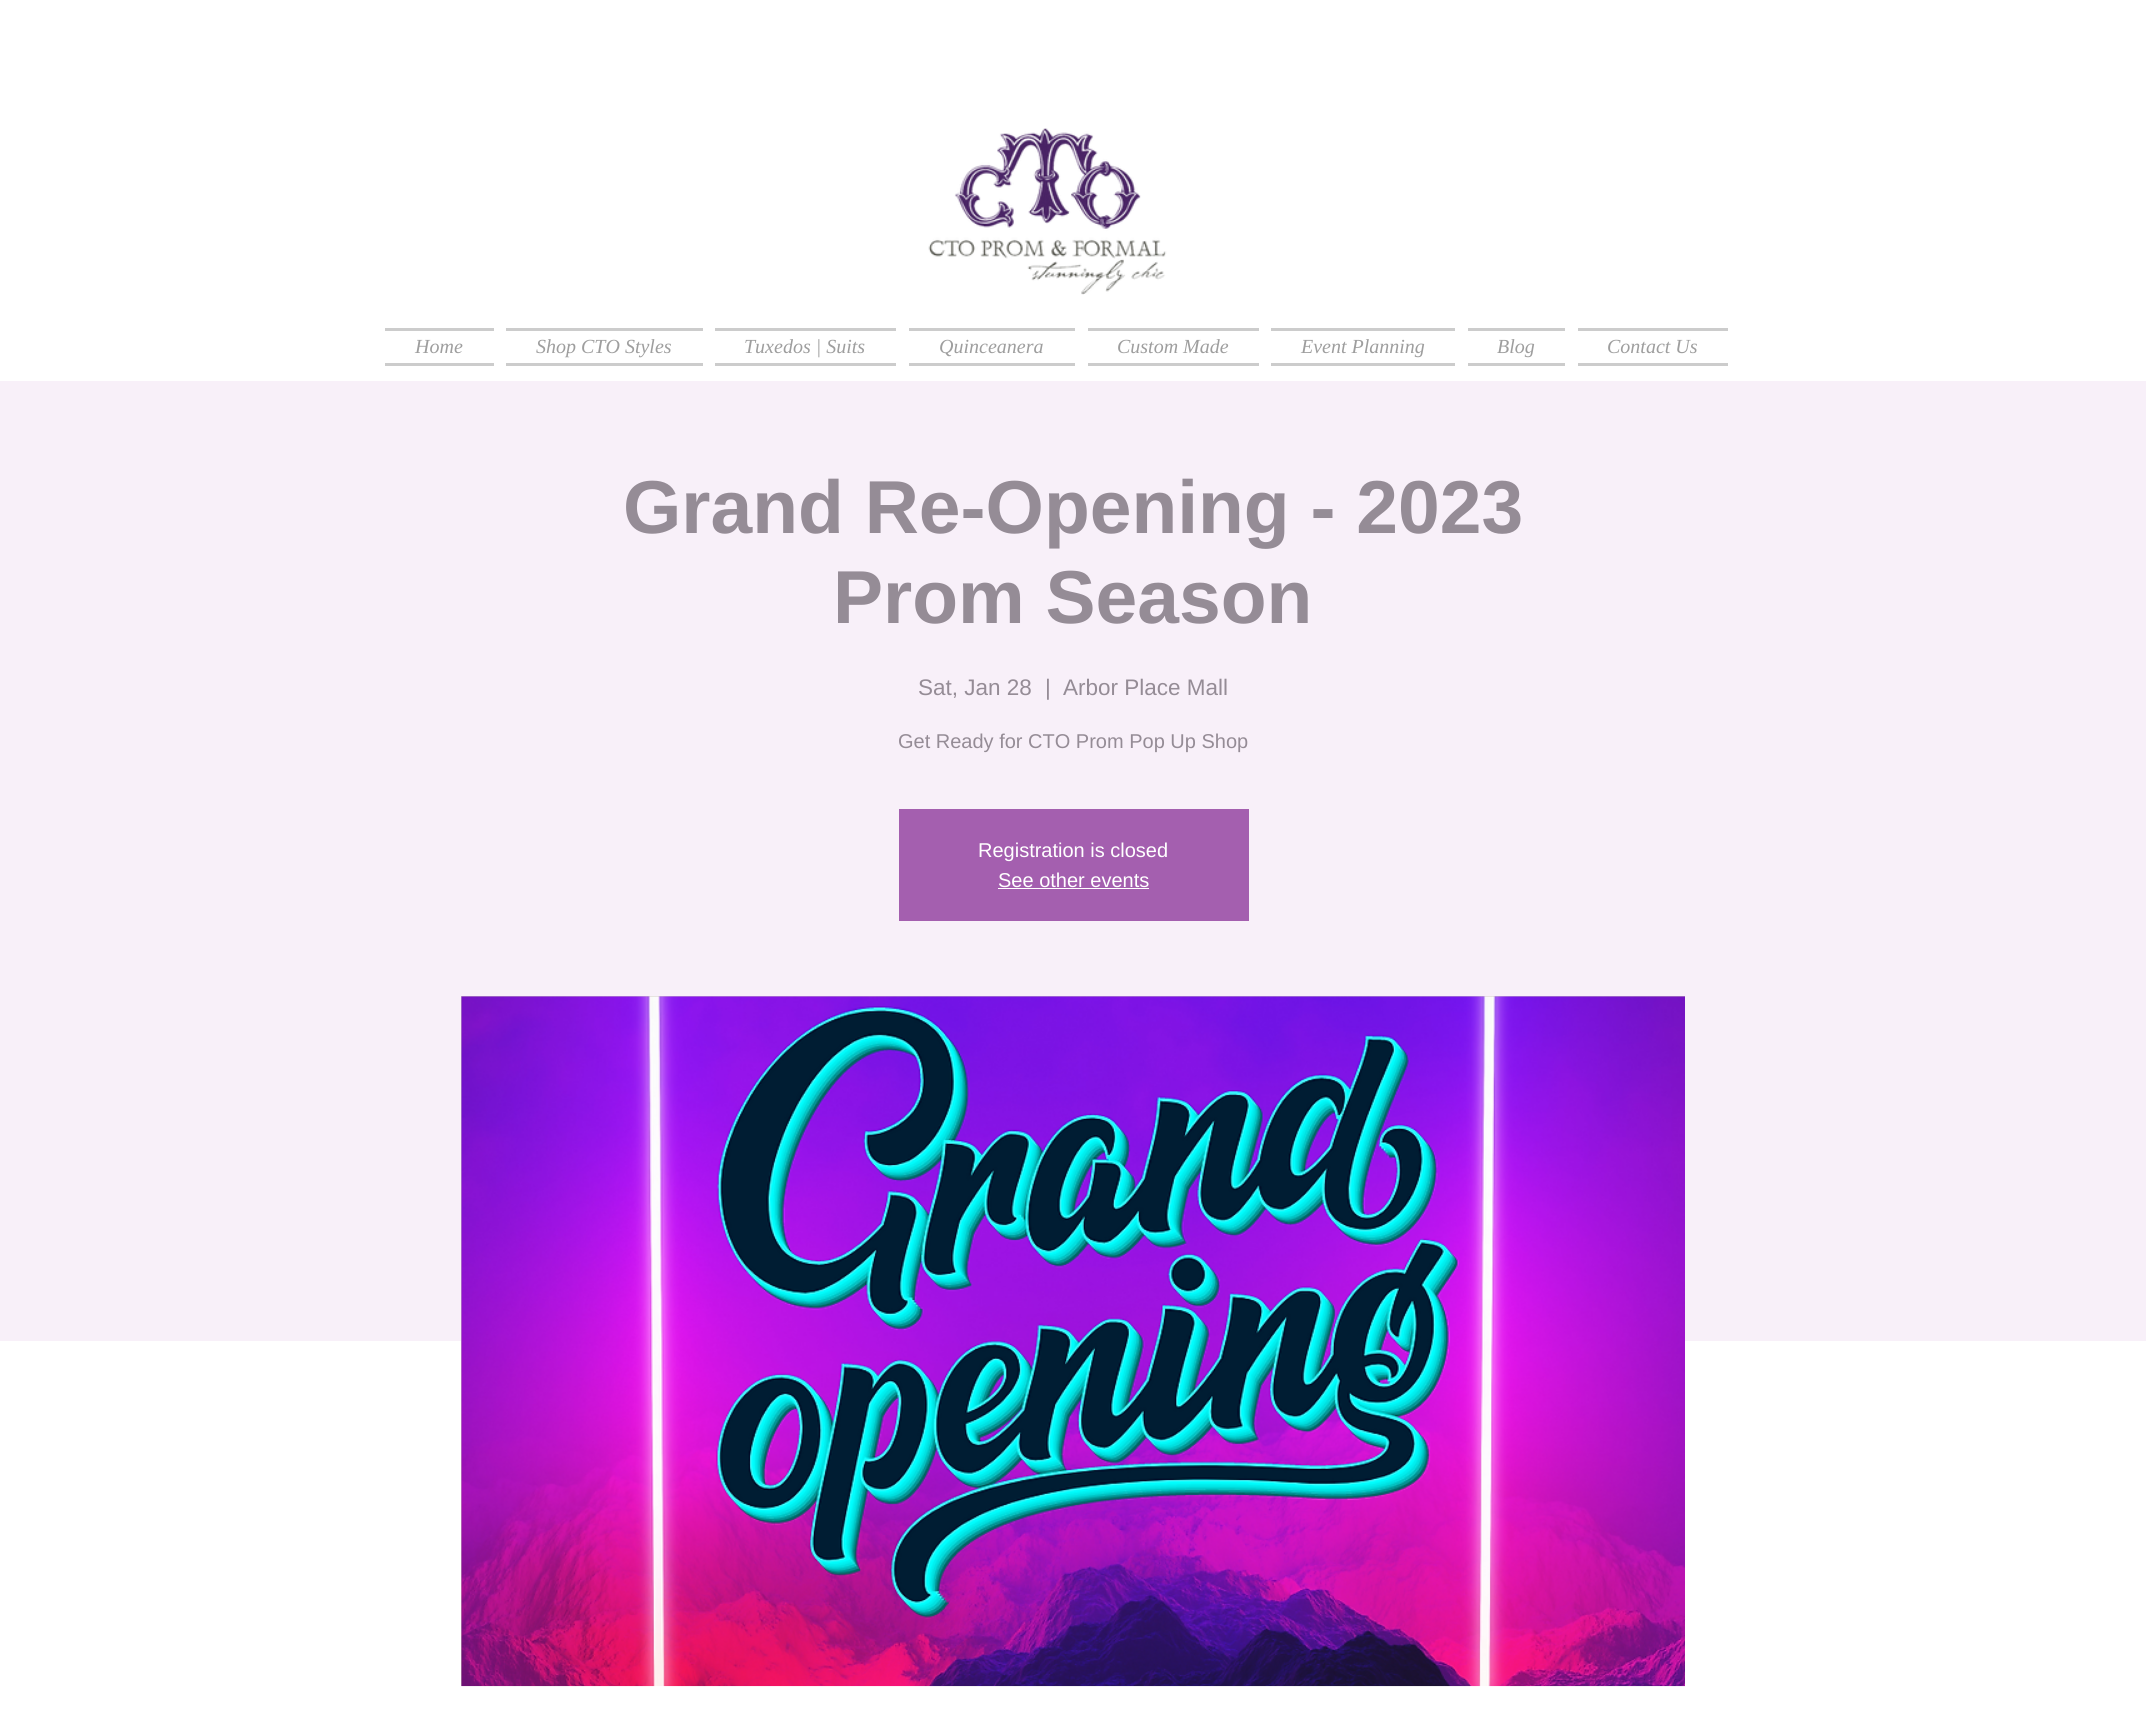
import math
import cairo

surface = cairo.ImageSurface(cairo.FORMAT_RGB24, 2146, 1710)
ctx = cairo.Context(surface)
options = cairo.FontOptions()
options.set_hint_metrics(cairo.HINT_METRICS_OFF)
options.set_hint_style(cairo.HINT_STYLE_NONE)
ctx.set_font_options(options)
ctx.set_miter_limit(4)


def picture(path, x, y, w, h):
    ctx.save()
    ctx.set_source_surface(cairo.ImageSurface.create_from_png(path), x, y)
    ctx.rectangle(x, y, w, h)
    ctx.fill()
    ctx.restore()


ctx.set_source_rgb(1, 1, 1)
ctx.paint()
picture("img1.png", 928, 128, 239, 167)
ctx.set_source_rgb(0.8, 0.8, 0.8)
ctx.rectangle(385, 328, 109, 3)
ctx.fill()
ctx.rectangle(385, 363, 109, 3)
ctx.fill()
ctx.select_font_face("Liberation Serif", cairo.FONT_SLANT_ITALIC)
ctx.set_font_size(20)
ctx.set_source_rgb(0.62, 0.62, 0.62)
ctx.move_to(415, 353)
ctx.show_text("Home")
ctx.set_source_rgb(0.8, 0.8, 0.8)
ctx.rectangle(506, 328, 197, 3)
ctx.fill()
ctx.rectangle(506, 363, 197, 3)
ctx.fill()
ctx.set_source_rgb(0.62, 0.62, 0.62)
ctx.move_to(536, 353)
ctx.show_text("Shop CTO Styles")
ctx.set_source_rgb(0.8, 0.8, 0.8)
ctx.rectangle(715, 328, 181, 3)
ctx.fill()
ctx.rectangle(715, 363, 181, 3)
ctx.fill()
ctx.set_source_rgb(0.62, 0.62, 0.62)
ctx.move_to(744, 353)
ctx.show_text("Tuxedos | Suits")
ctx.set_source_rgb(0.8, 0.8, 0.8)
ctx.rectangle(909, 328, 166, 3)
ctx.fill()
ctx.rectangle(909, 363, 166, 3)
ctx.fill()
ctx.set_source_rgb(0.62, 0.62, 0.62)
ctx.move_to(939, 353)
ctx.show_text("Quinceanera")
ctx.set_source_rgb(0.8, 0.8, 0.8)
ctx.rectangle(1088, 328, 171, 3)
ctx.fill()
ctx.rectangle(1088, 363, 171, 3)
ctx.fill()
ctx.set_source_rgb(0.62, 0.62, 0.62)
ctx.move_to(1117, 353)
ctx.show_text("Custom Made")
ctx.set_source_rgb(0.8, 0.8, 0.8)
ctx.rectangle(1271, 328, 184, 3)
ctx.fill()
ctx.rectangle(1271, 363, 184, 3)
ctx.fill()
ctx.set_source_rgb(0.62, 0.62, 0.62)
ctx.move_to(1301, 353)
ctx.show_text("Event Planning")
ctx.set_source_rgb(0.8, 0.8, 0.8)
ctx.rectangle(1468, 328, 97, 3)
ctx.fill()
ctx.rectangle(1468, 363, 97, 3)
ctx.fill()
ctx.set_source_rgb(0.62, 0.62, 0.62)
ctx.move_to(1497, 353)
ctx.show_text("Blog")
ctx.set_source_rgb(0.8, 0.8, 0.8)
ctx.rectangle(1578, 328, 150, 3)
ctx.fill()
ctx.rectangle(1578, 363, 150, 3)
ctx.fill()
ctx.set_source_rgb(0.62, 0.62, 0.62)
ctx.move_to(1607, 353)
ctx.show_text("Contact Us")
ctx.set_source_rgb(0.969, 0.941, 0.973)
ctx.rectangle(0, 381, 2146, 960)
ctx.fill()
ctx.select_font_face("Liberation Sans", cairo.FONT_SLANT_NORMAL, cairo.FONT_WEIGHT_BOLD)
ctx.set_font_size(75)
ctx.set_source_rgb(0.584, 0.549, 0.588)
ctx.move_to(623, 533)
ctx.show_text("Grand Re-Opening - 2023")
ctx.move_to(833, 623)
ctx.show_text("Prom Season")
ctx.select_font_face("Liberation Sans")
ctx.set_font_size(22.5)
ctx.move_to(918, 695)
ctx.show_text("Sat, Jan 28")
ctx.move_to(1045, 695)
ctx.show_text("|")
ctx.move_to(1063, 695)
ctx.show_text("Arbor Place Mall")
ctx.set_font_size(20)
ctx.move_to(898, 748)
ctx.show_text("Get Ready for CTO Prom Pop Up Shop")
ctx.set_source_rgb(0.643, 0.373, 0.686)
ctx.rectangle(899, 809, 350, 112)
ctx.fill()
ctx.set_source_rgb(1, 1, 1)
ctx.move_to(978, 857)
ctx.show_text("Registration is closed")
ctx.move_to(998, 887)
ctx.show_text("See other events")
ctx.rectangle(998, 888, 151, 1)
ctx.fill()
ctx.set_source_rgb(0.804, 0.773, 0.749)
ctx.rectangle(461, 996, 1224, 690)
ctx.fill()
picture("img2.png", 461, 996, 1224, 691)
surface.write_to_png("page.png")
